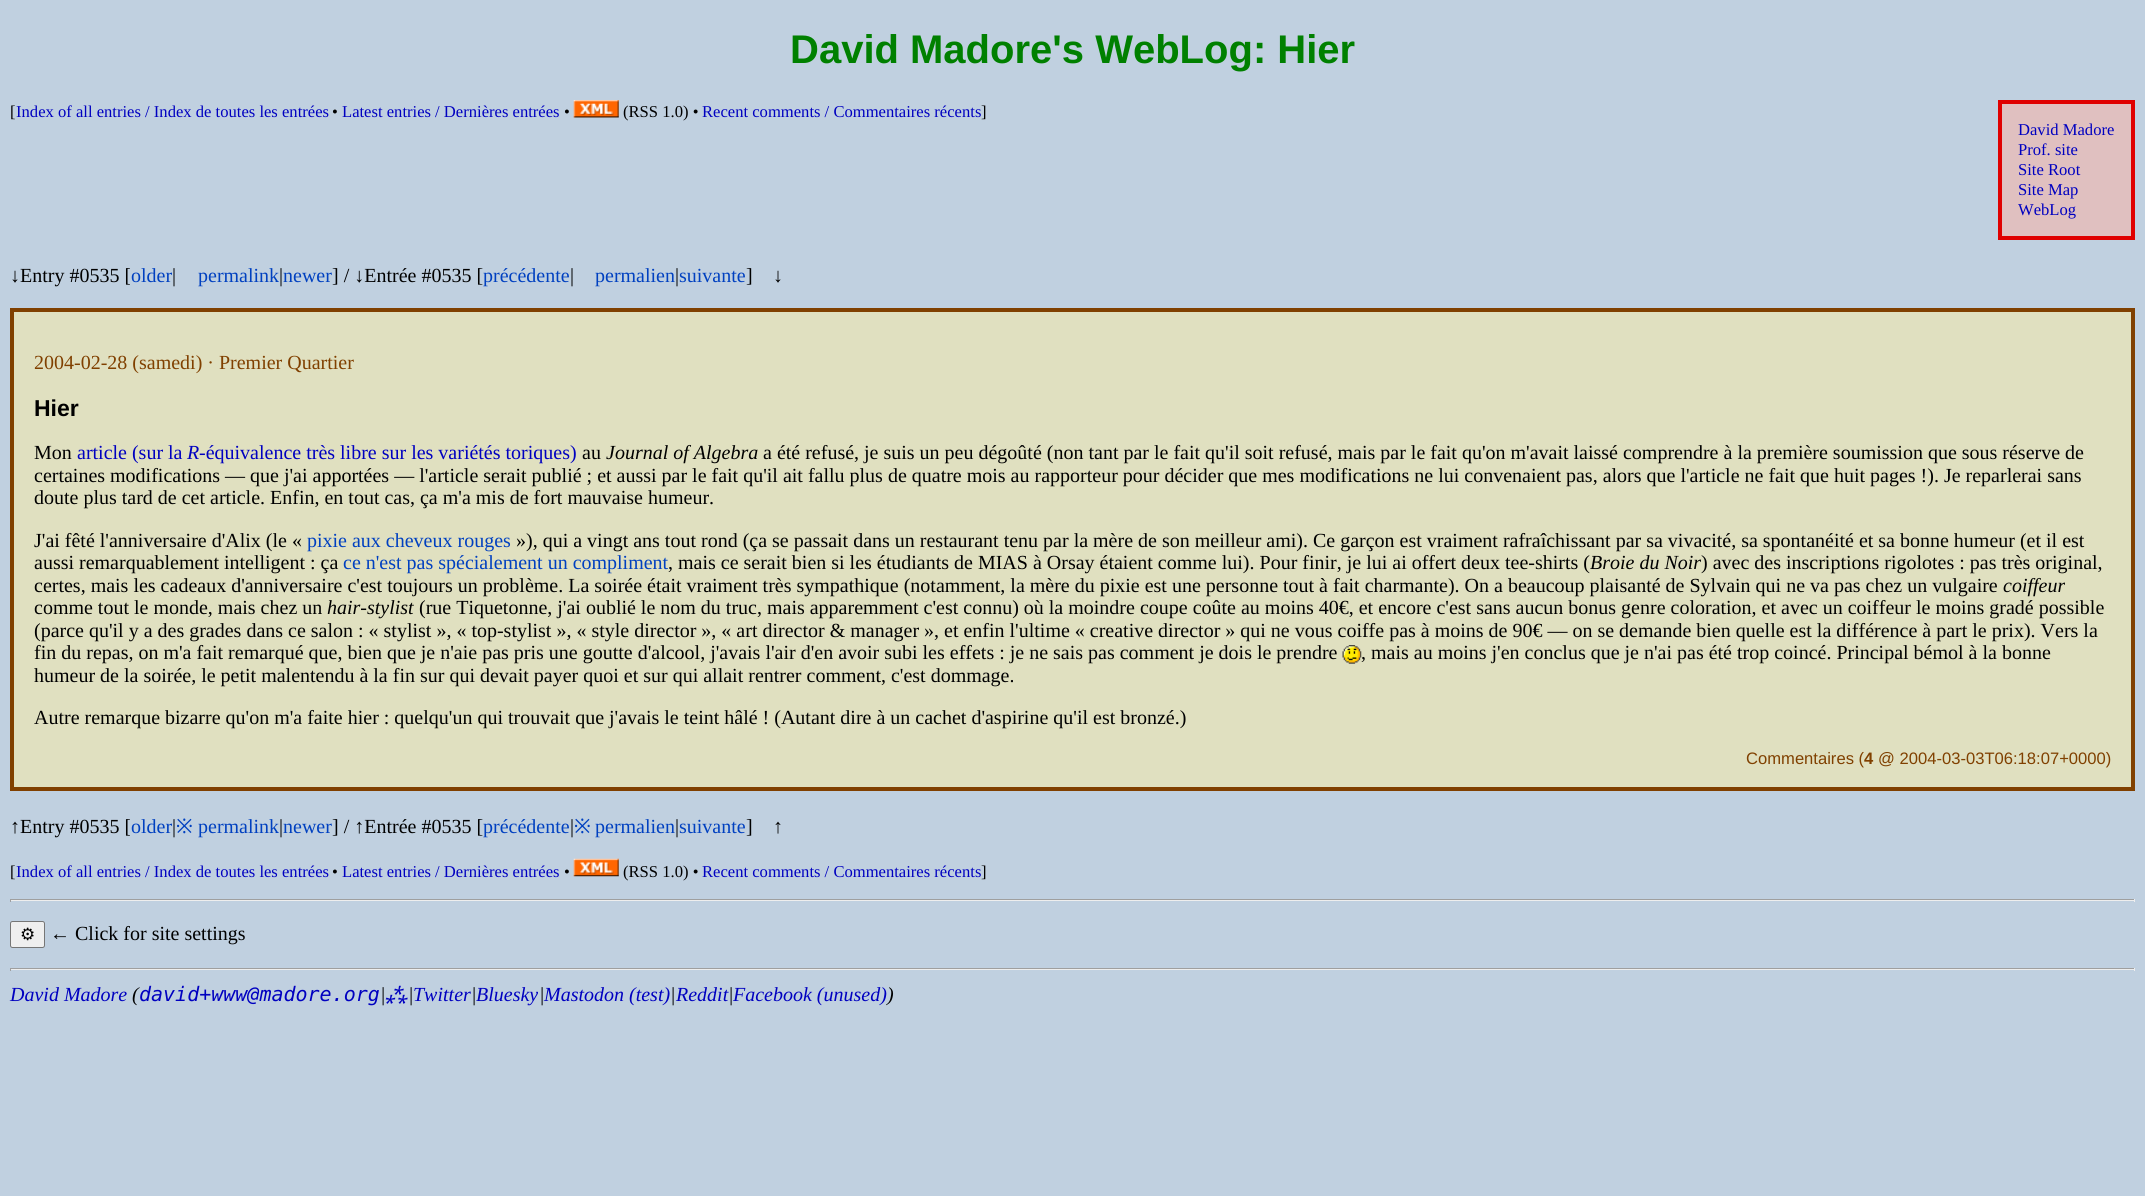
import math
import cairo

surface = cairo.ImageSurface(cairo.FORMAT_RGB24, 2145, 1196)
ctx = cairo.Context(surface)
options = cairo.FontOptions()
options.set_hint_metrics(cairo.HINT_METRICS_OFF)
options.set_hint_style(cairo.HINT_STYLE_NONE)
ctx.set_font_options(options)
ctx.set_miter_limit(4)


def round_rect(x, y, w, h, r):
    ctx.new_sub_path()
    for i, (u, v) in enumerate([(x + w - r, y + h - r), (x + r, y + h - r), (x + r, y + r), (x + w - r, y + r)]):
        ctx.arc(u, v, r, i * math.pi / 2, (i + 1) * math.pi / 2)
    ctx.close_path()


def picture(path, x, y, w, h):
    ctx.save()
    ctx.set_source_surface(cairo.ImageSurface.create_from_png(path), x, y)
    ctx.rectangle(x, y, w, h)
    ctx.fill()
    ctx.restore()


ctx.set_source_rgb(0.753, 0.816, 0.878)
ctx.paint()
ctx.select_font_face("Liberation Serif")
ctx.set_font_size(16.6)
ctx.set_source_rgb(0, 0, 0)
ctx.move_to(10, 117)
ctx.show_text("[")
ctx.set_source_rgb(0, 0, 0.753)
ctx.move_to(16, 117)
ctx.show_text("Index of all entries / Index de toutes les entrées")
ctx.set_source_rgb(0, 0, 0)
ctx.move_to(332, 117)
ctx.show_text("•")
ctx.set_source_rgb(0, 0, 0.753)
ctx.move_to(342, 117)
ctx.show_text("Latest entries / Dernières entrées")
ctx.set_source_rgb(0, 0, 0)
ctx.move_to(564, 117)
ctx.show_text("•")
picture("img1.png", 573, 100, 46, 18)
ctx.move_to(623, 117)
ctx.show_text("(RSS 1.0) •")
ctx.set_source_rgb(0, 0, 0.753)
ctx.move_to(702, 117)
ctx.show_text("Recent comments / Commentaires récents")
ctx.set_source_rgb(0, 0, 0)
ctx.move_to(981, 117)
ctx.show_text("]")
ctx.select_font_face("Liberation Sans", cairo.FONT_SLANT_NORMAL, cairo.FONT_WEIGHT_BOLD)
ctx.set_font_size(40)
ctx.set_source_rgb(0, 0.502, 0)
ctx.move_to(790, 63)
ctx.show_text("David Madore's WebLog: Hier")
ctx.set_source_rgb(0.878, 0.753, 0.753)
ctx.rectangle(2000, 102, 133, 136)
ctx.fill_preserve()
ctx.set_source_rgb(0.878, 0, 0)
ctx.set_line_width(4)
ctx.stroke()
ctx.select_font_face("Liberation Serif")
ctx.set_font_size(16.6)
ctx.set_source_rgb(0, 0, 0.753)
ctx.move_to(2018, 135)
ctx.show_text("David Madore")
ctx.move_to(2018, 155)
ctx.show_text("Prof. site")
ctx.move_to(2018, 175)
ctx.show_text("Site Root")
ctx.move_to(2018, 195)
ctx.show_text("Site Map")
ctx.move_to(2018, 215)
ctx.show_text("WebLog")
ctx.set_font_size(20)
ctx.set_source_rgb(0, 0, 0)
ctx.move_to(10, 282)
ctx.show_text("↓Entry #0535 [")
ctx.set_source_rgb(0, 0.251, 0.753)
ctx.move_to(131, 282)
ctx.show_text("older")
ctx.set_source_rgb(0, 0, 0)
ctx.move_to(172, 282)
ctx.show_text("|")
ctx.set_source_rgb(0, 0.251, 0.753)
ctx.move_to(198, 282)
ctx.show_text("permalink")
ctx.set_source_rgb(0, 0, 0)
ctx.move_to(279, 282)
ctx.show_text("|")
ctx.set_source_rgb(0, 0.251, 0.753)
ctx.move_to(283, 282)
ctx.show_text("newer")
ctx.set_source_rgb(0, 0, 0)
ctx.move_to(332, 282)
ctx.show_text("] / ↓Entrée #0535 [")
ctx.set_source_rgb(0, 0.251, 0.753)
ctx.move_to(483, 282)
ctx.show_text("précédente")
ctx.set_source_rgb(0, 0, 0)
ctx.move_to(570, 282)
ctx.show_text("|")
ctx.set_source_rgb(0, 0.251, 0.753)
ctx.move_to(595, 282)
ctx.show_text("permalien")
ctx.set_source_rgb(0, 0, 0)
ctx.move_to(675, 282)
ctx.show_text("|")
ctx.set_source_rgb(0, 0.251, 0.753)
ctx.move_to(679, 282)
ctx.show_text("suivante")
ctx.set_source_rgb(0, 0, 0)
ctx.move_to(746, 282)
ctx.show_text("]")
ctx.move_to(773, 282)
ctx.show_text("↓")
ctx.set_source_rgb(0.878, 0.878, 0.753)
ctx.rectangle(12, 310, 2121, 479)
ctx.fill_preserve()
ctx.set_source_rgb(0.502, 0.251, 0)
ctx.stroke()
ctx.move_to(34, 369)
ctx.show_text("2004-02-28 (samedi) · Premier Quartier")
ctx.select_font_face("Liberation Sans", cairo.FONT_SLANT_NORMAL, cairo.FONT_WEIGHT_BOLD)
ctx.set_font_size(23)
ctx.set_source_rgb(0, 0, 0)
ctx.move_to(34, 416)
ctx.show_text("Hier")
ctx.select_font_face("Liberation Serif")
ctx.set_font_size(20)
ctx.move_to(34, 459)
ctx.show_text("Mon")
ctx.set_source_rgb(0, 0, 0.753)
ctx.move_to(77, 459)
ctx.show_text("article (sur la")
ctx.select_font_face("Liberation Serif", cairo.FONT_SLANT_ITALIC)
ctx.move_to(187, 459)
ctx.show_text("R")
ctx.select_font_face("Liberation Serif")
ctx.move_to(199, 459)
ctx.show_text("-équivalence très libre sur les variétés toriques)")
ctx.set_source_rgb(0, 0, 0)
ctx.move_to(582, 459)
ctx.show_text("au")
ctx.select_font_face("Liberation Serif", cairo.FONT_SLANT_ITALIC)
ctx.move_to(606, 459)
ctx.show_text("Journal of Algebra")
ctx.select_font_face("Liberation Serif")
ctx.move_to(763, 459)
ctx.show_text("a été refusé, je suis un peu dégoûté (non tant par le fait qu'il soit refusé, mais par le fait qu'on m'avait laissé comprendre à la première soumission que sous réserve de")
ctx.move_to(34, 482)
ctx.show_text("certaines modifications — que j'ai apportées — l'article serait publié ; et aussi par le fait qu'il ait fallu plus de quatre mois au rapporteur pour décider que mes modifications ne lui convenaient pas, alors que l'article ne fait que huit pages !). Je reparlerai sans")
ctx.move_to(34, 504)
ctx.show_text("doute plus tard de cet article. Enfin, en tout cas, ça m'a mis de fort mauvaise humeur.")
ctx.move_to(34, 547)
ctx.show_text("J'ai fêté l'anniversaire d'Alix (le «")
ctx.set_source_rgb(0, 0.251, 0.753)
ctx.move_to(307, 547)
ctx.show_text("pixie aux cheveux rouges")
ctx.set_source_rgb(0, 0, 0)
ctx.move_to(516, 547)
ctx.show_text("»), qui a vingt ans tout rond (ça se passait dans un restaurant tenu par la mère de son meilleur ami). Ce garçon est vraiment rafraîchissant par sa vivacité, sa spontanéité et sa bonne humeur (et il est")
ctx.move_to(34, 569)
ctx.show_text("aussi remarquablement intelligent : ça")
ctx.set_source_rgb(0, 0.251, 0.753)
ctx.move_to(343, 569)
ctx.show_text("ce n'est pas spécialement un compliment")
ctx.set_source_rgb(0, 0, 0)
ctx.move_to(668, 569)
ctx.show_text(", mais ce serait bien si les étudiants de MIAS à Orsay étaient comme lui). Pour finir, je lui ai offert deux tee-shirts (")
ctx.select_font_face("Liberation Serif", cairo.FONT_SLANT_ITALIC)
ctx.move_to(1590, 569)
ctx.show_text("Broie du Noir")
ctx.select_font_face("Liberation Serif")
ctx.move_to(1701, 569)
ctx.show_text(") avec des inscriptions rigolotes : pas très original,")
ctx.move_to(34, 592)
ctx.show_text("certes, mais les cadeaux d'anniversaire c'est toujours un problème. La soirée était vraiment très sympathique (notamment, la mère du pixie est une personne tout à fait charmante). On a beaucoup plaisanté de Sylvain qui ne va pas chez un vulgaire")
ctx.select_font_face("Liberation Serif", cairo.FONT_SLANT_ITALIC)
ctx.move_to(2003, 592)
ctx.show_text("coiffeur")
ctx.select_font_face("Liberation Serif")
ctx.move_to(34, 614)
ctx.show_text("comme tout le monde, mais chez un")
ctx.select_font_face("Liberation Serif", cairo.FONT_SLANT_ITALIC)
ctx.move_to(327, 614)
ctx.show_text("hair-stylist")
ctx.select_font_face("Liberation Serif")
ctx.move_to(419, 614)
ctx.show_text("(rue Tiquetonne, j'ai oublié le nom du truc, mais apparemment c'est connu) où la moindre coupe coûte au moins 40€, et encore c'est sans aucun bonus genre coloration, et avec un coiffeur le moins gradé possible")
ctx.move_to(34, 637)
ctx.show_text("(parce qu'il y a des grades dans ce salon : « stylist », « top-stylist », « style director », « art director & manager », et enfin l'ultime « creative director » qui ne vous coiffe pas à moins de 90€ — on se demande bien quelle est la différence à part le prix). Vers la")
ctx.move_to(34, 659)
ctx.show_text("fin du repas, on m'a fait remarqué que, bien que je n'aie pas pris une goutte d'alcool, j'avais l'air d'en avoir subi les effets : je ne sais pas comment je dois le prendre")
picture("img2.png", 1342, 645, 20, 19)
ctx.move_to(1361, 659)
ctx.show_text(", mais au moins j'en conclus que je n'ai pas été trop coincé. Principal bémol à la bonne")
ctx.move_to(34, 682)
ctx.show_text("humeur de la soirée, le petit malentendu à la fin sur qui devait payer quoi et sur qui allait rentrer comment, c'est dommage.")
ctx.move_to(34, 724)
ctx.show_text("Autre remarque bizarre qu'on m'a faite hier : quelqu'un qui trouvait que j'avais le teint hâlé ! (Autant dire à un cachet d'aspirine qu'il est bronzé.)")
ctx.select_font_face("Liberation Sans")
ctx.set_font_size(16.6)
ctx.set_source_rgb(0.502, 0.251, 0)
ctx.move_to(1746, 764)
ctx.show_text("Commentaires (")
ctx.select_font_face("Liberation Sans", cairo.FONT_SLANT_NORMAL, cairo.FONT_WEIGHT_BOLD)
ctx.move_to(1864, 764)
ctx.show_text("4")
ctx.select_font_face("Liberation Sans")
ctx.move_to(1878, 764)
ctx.show_text("@ 2004-03-03T06:18:07+0000)")
ctx.select_font_face("Liberation Serif")
ctx.set_font_size(20)
ctx.set_source_rgb(0, 0, 0)
ctx.move_to(10, 833)
ctx.show_text("↑Entry #0535 [")
ctx.set_source_rgb(0, 0.251, 0.753)
ctx.move_to(131, 833)
ctx.show_text("older")
ctx.set_source_rgb(0, 0, 0)
ctx.move_to(172, 833)
ctx.show_text("|")
ctx.select_font_face("Noto Sans")
ctx.set_source_rgb(0, 0.251, 0.753)
ctx.move_to(176, 833)
ctx.show_text("※")
ctx.select_font_face("Liberation Serif")
ctx.move_to(198, 833)
ctx.show_text("permalink")
ctx.set_source_rgb(0, 0, 0)
ctx.move_to(279, 833)
ctx.show_text("|")
ctx.set_source_rgb(0, 0.251, 0.753)
ctx.move_to(283, 833)
ctx.show_text("newer")
ctx.set_source_rgb(0, 0, 0)
ctx.move_to(332, 833)
ctx.show_text("] / ↑Entrée #0535 [")
ctx.set_source_rgb(0, 0.251, 0.753)
ctx.move_to(483, 833)
ctx.show_text("précédente")
ctx.set_source_rgb(0, 0, 0)
ctx.move_to(570, 833)
ctx.show_text("|")
ctx.select_font_face("Noto Sans")
ctx.set_source_rgb(0, 0.251, 0.753)
ctx.move_to(574, 833)
ctx.show_text("※")
ctx.select_font_face("Liberation Serif")
ctx.move_to(595, 833)
ctx.show_text("permalien")
ctx.set_source_rgb(0, 0, 0)
ctx.move_to(675, 833)
ctx.show_text("|")
ctx.set_source_rgb(0, 0.251, 0.753)
ctx.move_to(679, 833)
ctx.show_text("suivante")
ctx.set_source_rgb(0, 0, 0)
ctx.move_to(746, 833)
ctx.show_text("]")
ctx.move_to(773, 833)
ctx.show_text("↑")
ctx.set_font_size(16.6)
ctx.move_to(10, 877)
ctx.show_text("[")
ctx.set_source_rgb(0, 0, 0.753)
ctx.move_to(16, 877)
ctx.show_text("Index of all entries / Index de toutes les entrées")
ctx.set_source_rgb(0, 0, 0)
ctx.move_to(332, 877)
ctx.show_text("•")
ctx.set_source_rgb(0, 0, 0.753)
ctx.move_to(342, 877)
ctx.show_text("Latest entries / Dernières entrées")
ctx.set_source_rgb(0, 0, 0)
ctx.move_to(564, 877)
ctx.show_text("•")
picture("img3.png", 573, 858, 46, 19)
ctx.move_to(623, 877)
ctx.show_text("(RSS 1.0) •")
ctx.set_source_rgb(0, 0, 0.753)
ctx.move_to(702, 877)
ctx.show_text("Recent comments / Commentaires récents")
ctx.set_source_rgb(0, 0, 0)
ctx.move_to(981, 877)
ctx.show_text("]")
ctx.set_source_rgb(0.624, 0.624, 0.624)
ctx.rectangle(10, 899, 2125, 1)
ctx.fill()
ctx.set_source_rgb(0.933, 0.933, 0.933)
ctx.rectangle(2134, 899, 1, 3)
ctx.fill()
ctx.rectangle(10, 900, 2125, 1)
ctx.fill()
ctx.set_source_rgb(0.624, 0.624, 0.624)
ctx.rectangle(10, 899, 1, 3)
ctx.fill()
ctx.set_source_rgb(0.937, 0.937, 0.937)
round_rect(10.5, 921.5, 34, 26, 2)
ctx.fill_preserve()
ctx.set_source_rgb(0.463, 0.463, 0.463)
ctx.set_line_width(1)
ctx.stroke()
ctx.select_font_face("DejaVu Sans")
ctx.set_font_size(17)
ctx.set_source_rgb(0, 0, 0)
ctx.move_to(20, 940)
ctx.show_text("⚙")
ctx.select_font_face("Liberation Serif")
ctx.set_font_size(20)
ctx.move_to(50, 940)
ctx.show_text("← Click for site settings")
ctx.set_source_rgb(0.624, 0.624, 0.624)
ctx.rectangle(10, 968, 2125, 1)
ctx.fill()
ctx.set_source_rgb(0.933, 0.933, 0.933)
ctx.rectangle(2134, 968, 1, 3)
ctx.fill()
ctx.rectangle(10, 969, 2125, 1)
ctx.fill()
ctx.set_source_rgb(0.624, 0.624, 0.624)
ctx.rectangle(10, 968, 1, 3)
ctx.fill()
ctx.select_font_face("Liberation Serif", cairo.FONT_SLANT_ITALIC)
ctx.set_source_rgb(0, 0, 0.753)
ctx.move_to(10, 1001)
ctx.show_text("David Madore")
ctx.set_source_rgb(0, 0, 0)
ctx.move_to(132, 1001)
ctx.show_text("(")
ctx.select_font_face("DejaVu Sans Mono", cairo.FONT_SLANT_ITALIC)
ctx.set_source_rgb(0, 0, 0.753)
ctx.move_to(139, 1001)
ctx.show_text("david+www@madore.org")
ctx.select_font_face("Liberation Serif", cairo.FONT_SLANT_ITALIC)
ctx.set_source_rgb(0, 0, 0)
ctx.move_to(380, 1001)
ctx.show_text("|")
ctx.select_font_face("Noto Sans", cairo.FONT_SLANT_ITALIC)
ctx.set_source_rgb(0, 0, 0.753)
ctx.move_to(385, 1001)
ctx.show_text("⁂")
ctx.select_font_face("Liberation Serif", cairo.FONT_SLANT_ITALIC)
ctx.set_source_rgb(0, 0, 0)
ctx.move_to(408, 1001)
ctx.show_text("|")
ctx.set_source_rgb(0, 0, 0.753)
ctx.move_to(413, 1001)
ctx.show_text("Twitter")
ctx.set_source_rgb(0, 0, 0)
ctx.move_to(471, 1001)
ctx.show_text("|")
ctx.set_source_rgb(0, 0, 0.753)
ctx.move_to(476, 1001)
ctx.show_text("Bluesky")
ctx.set_source_rgb(0, 0, 0)
ctx.move_to(539, 1001)
ctx.show_text("|")
ctx.set_source_rgb(0, 0, 0.753)
ctx.move_to(544, 1001)
ctx.show_text("Mastodon (test)")
ctx.set_source_rgb(0, 0, 0)
ctx.move_to(670, 1001)
ctx.show_text("|")
ctx.set_source_rgb(0, 0, 0.753)
ctx.move_to(676, 1001)
ctx.show_text("Reddit")
ctx.set_source_rgb(0, 0, 0)
ctx.move_to(728, 1001)
ctx.show_text("|")
ctx.set_source_rgb(0, 0, 0.753)
ctx.move_to(733, 1001)
ctx.show_text("Facebook (unused)")
ctx.set_source_rgb(0, 0, 0)
ctx.move_to(887, 1001)
ctx.show_text(")")
surface.write_to_png("page.png")
